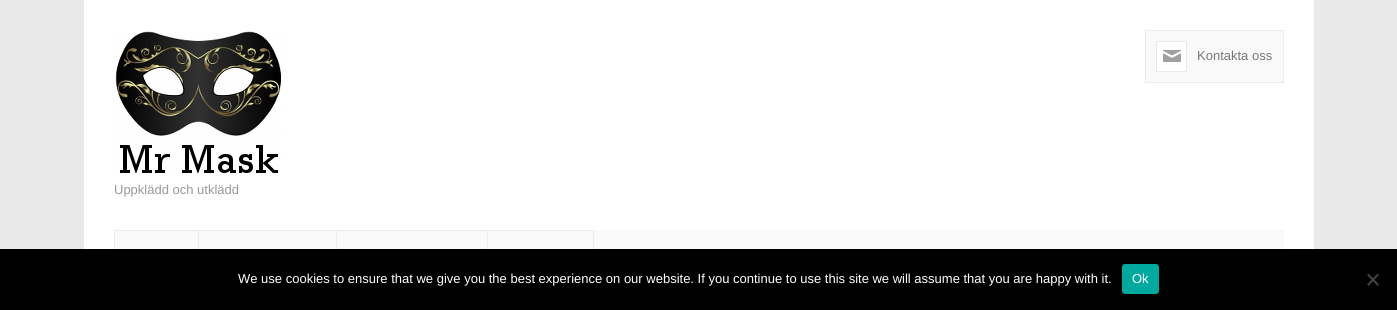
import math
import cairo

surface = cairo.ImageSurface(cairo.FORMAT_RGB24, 1397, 310)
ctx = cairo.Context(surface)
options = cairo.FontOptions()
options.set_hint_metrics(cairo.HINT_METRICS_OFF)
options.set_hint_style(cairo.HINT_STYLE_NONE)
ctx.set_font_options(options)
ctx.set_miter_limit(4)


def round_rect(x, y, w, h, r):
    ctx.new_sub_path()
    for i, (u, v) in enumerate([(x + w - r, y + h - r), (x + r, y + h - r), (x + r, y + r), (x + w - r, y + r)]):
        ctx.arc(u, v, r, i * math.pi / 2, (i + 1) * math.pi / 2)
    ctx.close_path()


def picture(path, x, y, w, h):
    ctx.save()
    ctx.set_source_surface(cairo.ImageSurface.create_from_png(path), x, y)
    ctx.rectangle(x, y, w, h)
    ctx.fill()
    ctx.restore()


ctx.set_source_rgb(0.914, 0.914, 0.914)
ctx.paint()
ctx.set_source_rgb(1, 1, 1)
ctx.rectangle(84, 0, 1230, 249)
ctx.fill()
ctx.set_source_rgb(0.973, 0.973, 0.973)
ctx.rectangle(1145.5, 30.5, 138, 52)
ctx.fill_preserve()
ctx.set_source_rgb(0.925, 0.925, 0.925)
ctx.set_line_width(1)
ctx.stroke()
ctx.set_source_rgb(1, 1, 1)
ctx.rectangle(1157, 42, 29, 29)
ctx.fill()
picture("img1.png", 1163, 50, 18, 12)
ctx.rectangle(1156.5, 41.5, 30, 30)
ctx.set_source_rgb(0.914, 0.914, 0.914)
ctx.stroke()
ctx.select_font_face("Liberation Sans")
ctx.set_font_size(13)
ctx.set_source_rgb(0.467, 0.467, 0.467)
ctx.move_to(1197, 60)
ctx.show_text("Kontakta oss")
picture("img2.png", 115, 31, 168, 142)
ctx.set_source_rgb(0.6, 0.6, 0.6)
ctx.move_to(114, 194)
ctx.show_text("Uppklädd och utklädd")
ctx.set_source_rgb(0.973, 0.973, 0.973)
ctx.rectangle(115, 230, 1169, 19)
ctx.fill()
ctx.rectangle(114.5, 230.5, 84, 63)
ctx.set_source_rgb(0.925, 0.925, 0.925)
ctx.stroke()
ctx.rectangle(199, 230, 395, 1)
ctx.fill()
ctx.rectangle(336, 230, 1, 19)
ctx.fill()
ctx.rectangle(487, 230, 1, 19)
ctx.fill()
ctx.rectangle(593, 230, 1, 19)
ctx.fill()
ctx.set_source_rgb(0, 0, 0)
ctx.rectangle(0, 249, 1397, 61)
ctx.fill()
ctx.set_source_rgb(1, 1, 1)
ctx.move_to(238, 283)
ctx.show_text("We use cookies to ensure that we give you the best experience on our website. If you continue to use this site we will assume that you are happy with it.")
ctx.set_source_rgb(0, 0.663, 0.616)
round_rect(1122, 264, 37, 30, 3)
ctx.fill()
ctx.set_source_rgb(1, 1, 1)
ctx.move_to(1132, 283)
ctx.show_text("Ok")
ctx.set_source_rgb(0.251, 0.251, 0.251)
ctx.new_path()
ctx.move_to(1377.5, 273.5)
ctx.line_to(1379, 275)
ctx.line_to(1368.5, 286)
ctx.line_to(1367, 284.5)
ctx.close_path()
ctx.fill()
ctx.new_path()
ctx.move_to(1367, 275)
ctx.line_to(1368.5, 273.5)
ctx.line_to(1379, 284.5)
ctx.line_to(1377.5, 286)
ctx.close_path()
ctx.fill()
surface.write_to_png("page.png")
